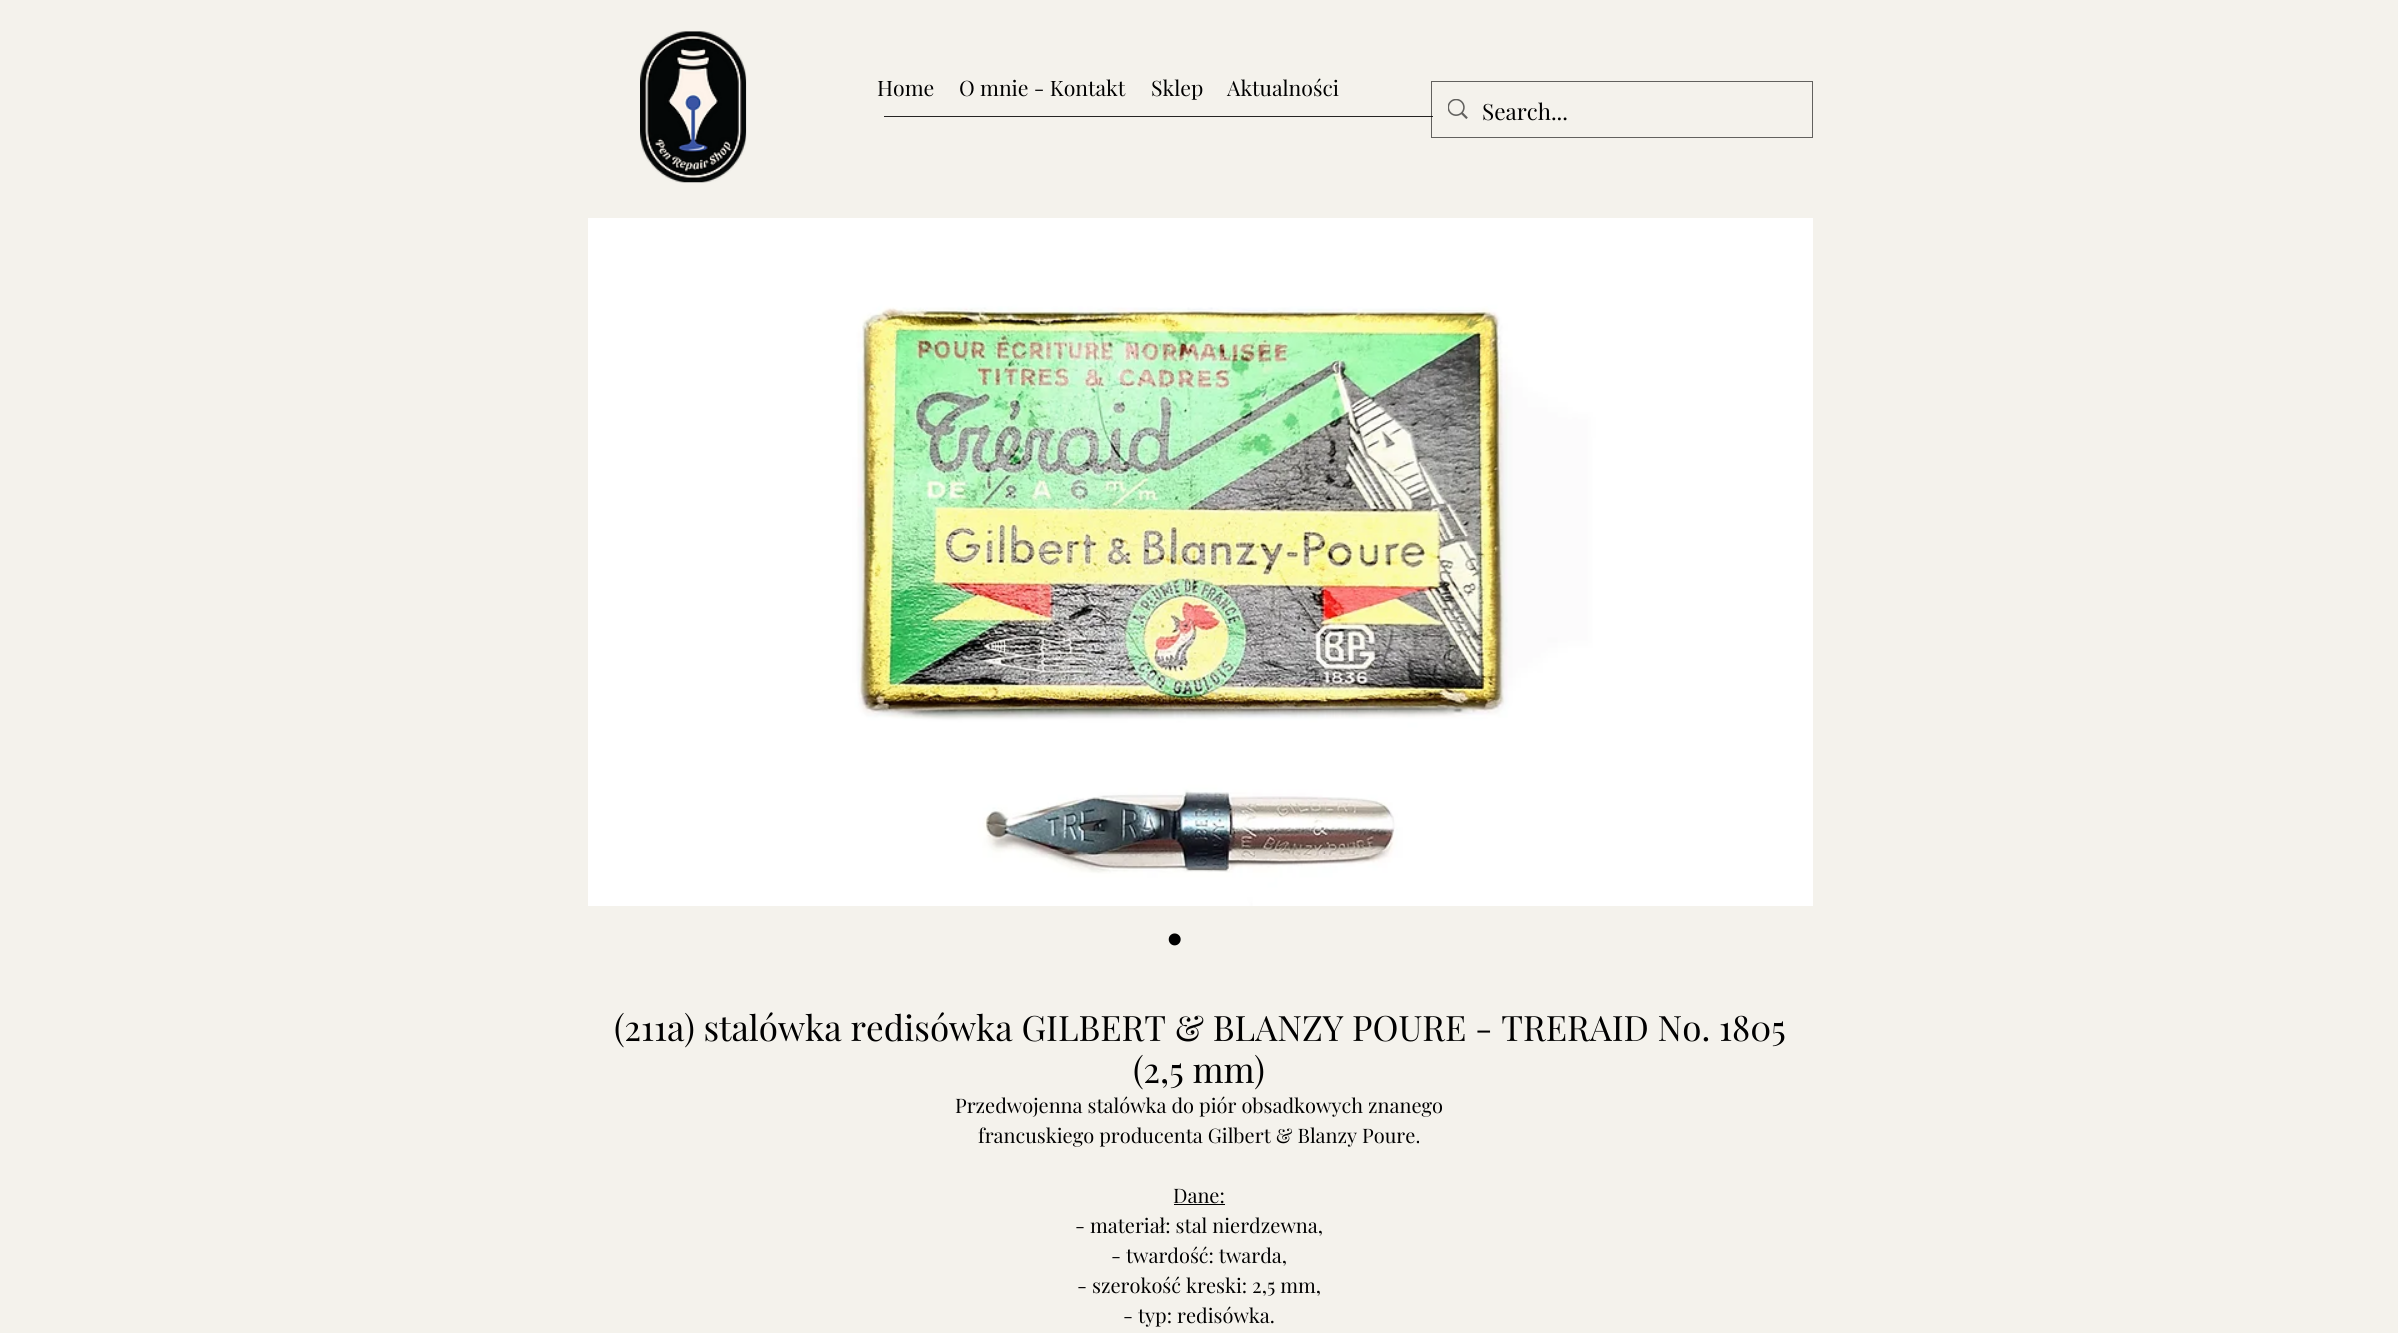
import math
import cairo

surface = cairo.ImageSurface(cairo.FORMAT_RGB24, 2398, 1333)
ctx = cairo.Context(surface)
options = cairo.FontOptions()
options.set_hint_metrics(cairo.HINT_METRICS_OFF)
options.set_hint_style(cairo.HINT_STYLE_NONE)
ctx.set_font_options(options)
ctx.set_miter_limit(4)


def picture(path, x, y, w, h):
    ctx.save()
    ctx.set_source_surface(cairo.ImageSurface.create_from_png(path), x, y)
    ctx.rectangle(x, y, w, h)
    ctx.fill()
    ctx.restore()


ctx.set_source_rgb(0.957, 0.949, 0.925)
ctx.paint()
picture("img1.png", 640, 31, 107, 152)
ctx.select_font_face("Playfair Display")
ctx.set_font_size(21.25)
ctx.set_source_rgb(0, 0, 0)
ctx.move_to(877, 96)
ctx.show_text("Home")
ctx.move_to(959, 96)
ctx.show_text("O mnie - Kontakt")
ctx.move_to(1151, 96)
ctx.show_text("Sklep")
ctx.move_to(1227, 96)
ctx.show_text("Aktualności")
ctx.set_source_rgb(0.145, 0.141, 0.137)
ctx.rectangle(884, 116, 549, 1)
ctx.fill()
ctx.rectangle(1431.5, 81.5, 381, 56)
ctx.set_source_rgba(0, 0, 0, 0.6)
ctx.set_line_width(1)
ctx.stroke()
picture("img2.png", 1448, 99, 20, 20)
ctx.set_font_size(22.5)
ctx.set_source_rgb(0, 0, 0)
ctx.move_to(1482, 120)
ctx.show_text("Search...")
picture("img3.png", 588, 218, 1225, 688)
ctx.select_font_face("Liberation Sans")
ctx.set_font_size(44)
ctx.move_to(1167, 954)
ctx.show_text("•")
ctx.select_font_face("Playfair Display")
ctx.set_font_size(35)
ctx.move_to(614, 1041)
ctx.show_text("(211a) stalówka redisówka GILBERT & BLANZY POURE - TRERAID No. 1805")
ctx.move_to(1133, 1083)
ctx.show_text("(2,5 mm)")
ctx.set_font_size(20)
ctx.move_to(955, 1113)
ctx.show_text("Przedwojenna stalówka do piór obsadkowych znanego")
ctx.move_to(978, 1143)
ctx.show_text("francuskiego producenta Gilbert & Blanzy Poure.")
ctx.move_to(1173, 1203)
ctx.show_text("Dane:")
ctx.rectangle(1174, 1204, 51, 1)
ctx.fill()
ctx.move_to(1075, 1233)
ctx.show_text("- materiał: stal nierdzewna,")
ctx.move_to(1111, 1263)
ctx.show_text("- twardość: twarda,")
ctx.move_to(1077, 1293)
ctx.show_text("- szerokość kreski: 2,5 mm,")
ctx.move_to(1123, 1323)
ctx.show_text("- typ: redisówka.")
surface.write_to_png("page.png")
